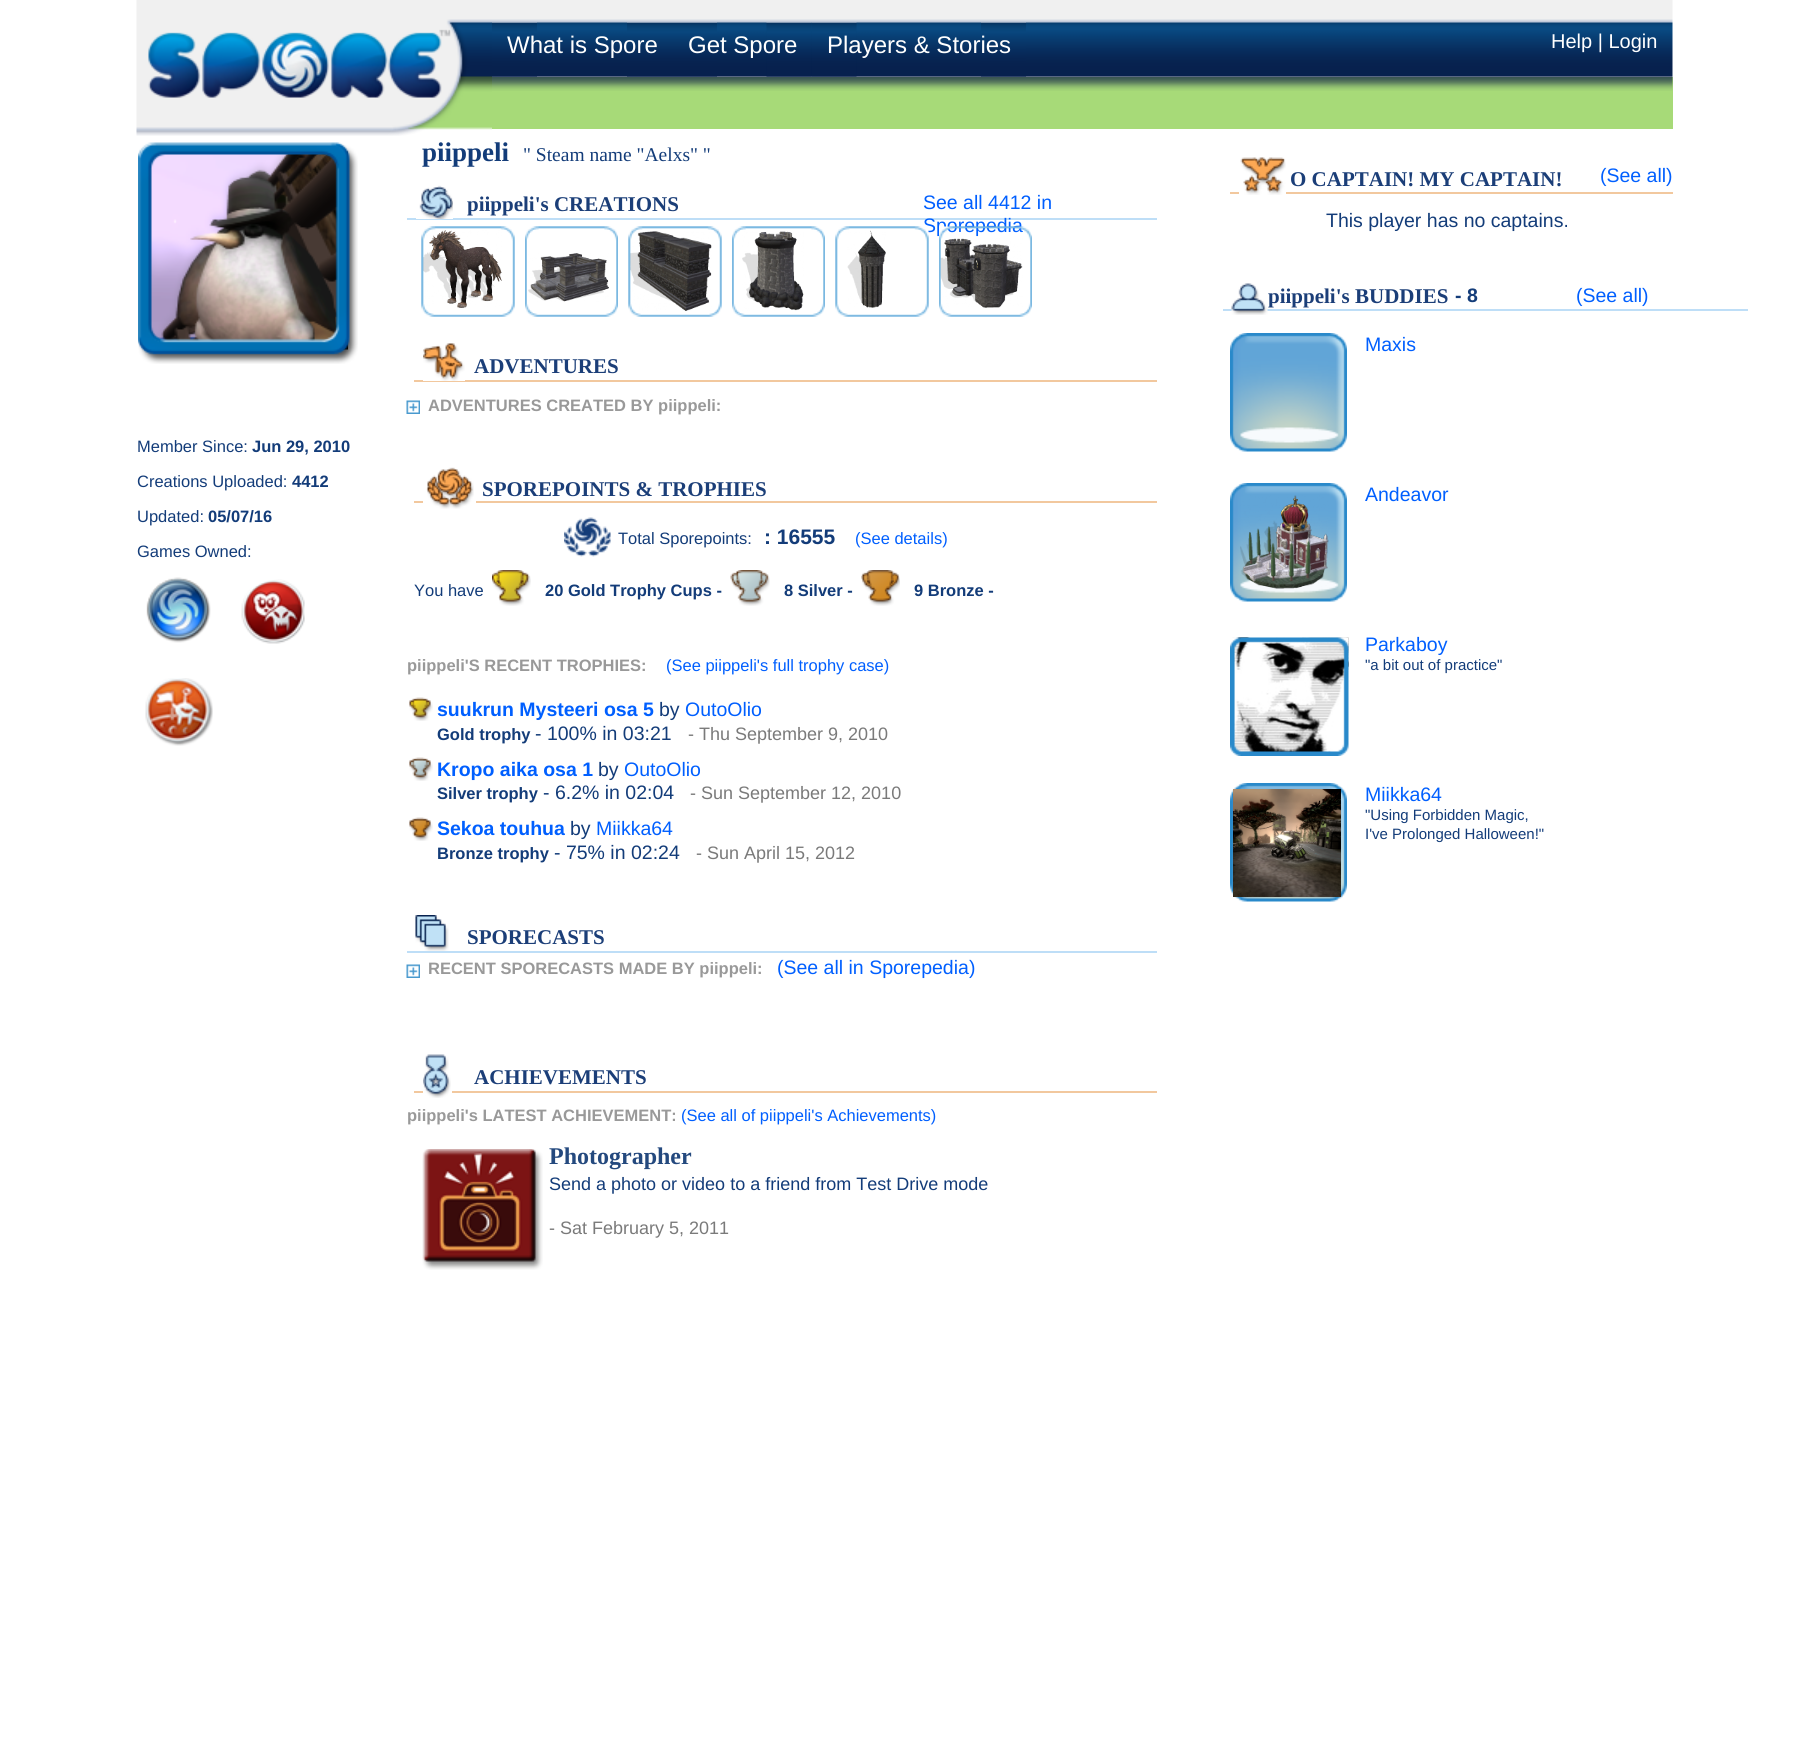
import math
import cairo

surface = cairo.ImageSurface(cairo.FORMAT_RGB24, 1809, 1738)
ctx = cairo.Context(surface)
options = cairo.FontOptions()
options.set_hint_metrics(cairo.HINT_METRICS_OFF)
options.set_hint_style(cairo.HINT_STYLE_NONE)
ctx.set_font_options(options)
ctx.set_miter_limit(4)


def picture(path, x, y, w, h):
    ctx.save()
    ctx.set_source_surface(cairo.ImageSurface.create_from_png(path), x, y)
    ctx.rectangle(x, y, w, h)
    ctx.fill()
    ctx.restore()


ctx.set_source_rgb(1, 1, 1)
ctx.paint()
picture("img1.png", 136, 0, 356, 136)
picture("img2.png", 492, 0, 1023, 77)
ctx.set_source_rgb(0.655, 0.855, 0.471)
ctx.rectangle(492, 77, 1181, 52)
ctx.fill()
picture("img6.png", 492, 76, 1023, 15)
picture("img3.png", 492, 22, 45, 55)
picture("img3.png", 627, 22, 45, 55)
ctx.select_font_face("Liberation Sans")
ctx.set_font_size(24)
ctx.set_source_rgb(1, 1, 1)
ctx.move_to(507, 53)
ctx.show_text("What is Spore")
picture("img3.png", 672, 22, 45, 55)
picture("img4.png", 766, 22, 46, 55)
ctx.move_to(688, 53)
ctx.show_text("Get Spore")
picture("img5.png", 811, 22, 46, 55)
picture("img3.png", 981, 22, 45, 55)
ctx.move_to(827, 53)
ctx.show_text("Players & Stories")
picture("img7.png", 1515, 0, 158, 77)
ctx.set_font_size(20)
ctx.move_to(1551, 48)
ctx.show_text("Help | Login")
picture("img8.png", 1515, 76, 158, 15)
picture("img10.png", 144, 151, 204, 199)
picture("img9.png", 138, 142, 220, 222)
ctx.set_font_size(16.5)
ctx.set_source_rgb(0.078, 0.235, 0.475)
ctx.move_to(137, 452)
ctx.show_text("Member Since:")
ctx.select_font_face("Liberation Sans", cairo.FONT_SLANT_NORMAL, cairo.FONT_WEIGHT_BOLD)
ctx.move_to(252, 452)
ctx.show_text("Jun 29, 2010")
ctx.select_font_face("Liberation Sans")
ctx.move_to(137, 487)
ctx.show_text("Creations Uploaded:")
ctx.select_font_face("Liberation Sans", cairo.FONT_SLANT_NORMAL, cairo.FONT_WEIGHT_BOLD)
ctx.move_to(292, 487)
ctx.show_text("4412")
ctx.select_font_face("Liberation Sans")
ctx.move_to(137, 522)
ctx.show_text("Updated:")
ctx.select_font_face("Liberation Sans", cairo.FONT_SLANT_NORMAL, cairo.FONT_WEIGHT_BOLD)
ctx.move_to(208, 522)
ctx.show_text("05/07/16")
ctx.select_font_face("Liberation Sans")
ctx.move_to(137, 557)
ctx.show_text("Games Owned:")
picture("img11.png", 146, 577, 65, 66)
picture("img12.png", 241, 579, 64, 65)
picture("img13.png", 145, 678, 68, 68)
ctx.save()
ctx.rectangle(422, 137, 600, 33)
ctx.clip()
ctx.select_font_face("Liberation Serif", cairo.FONT_SLANT_NORMAL, cairo.FONT_WEIGHT_BOLD)
ctx.set_font_size(27)
ctx.move_to(422, 161)
ctx.show_text("piippeli")
ctx.restore()
ctx.select_font_face("Liberation Serif")
ctx.set_font_size(19.5)
ctx.move_to(523, 161)
ctx.show_text("\" Steam name \"Aelxs\" \"")
ctx.set_source_rgb(0.745, 0.871, 0.965)
ctx.rectangle(407, 218, 750, 2)
ctx.fill()
ctx.set_source_rgb(1, 1, 1)
ctx.rectangle(416, 218, 37, 1)
ctx.fill()
picture("img14.png", 419, 185, 34, 34)
ctx.select_font_face("Liberation Serif", cairo.FONT_SLANT_NORMAL, cairo.FONT_WEIGHT_BOLD)
ctx.set_font_size(21)
ctx.set_source_rgb(0.106, 0.243, 0.471)
ctx.move_to(467, 211)
ctx.show_text("piippeli's CREATIONS")
ctx.select_font_face("Liberation Sans")
ctx.set_font_size(19.5)
ctx.set_source_rgb(0, 0.373, 1)
ctx.move_to(923, 209)
ctx.show_text("See all 4412 in")
picture("img26.png", 835, 226, 94, 91)
picture("img29.png", 939, 226, 93, 91)
ctx.move_to(923, 232)
ctx.show_text("Sporepedia")
picture("img15.png", 421, 226, 94, 91)
picture("img17.png", 423, 230, 79, 78)
picture("img16.png", 421, 226, 94, 91)
picture("img18.png", 525, 226, 93, 91)
picture("img20.png", 528, 253, 81, 49)
picture("img19.png", 526, 226, 92, 91)
picture("img21.png", 628, 226, 94, 91)
picture("img23.png", 630, 231, 82, 80)
picture("img22.png", 628, 226, 94, 91)
picture("img18.png", 732, 226, 93, 91)
picture("img25.png", 742, 231, 62, 80)
picture("img24.png", 733, 226, 92, 91)
picture("img28.png", 847, 230, 39, 78)
picture("img27.png", 835, 226, 94, 91)
picture("img31.png", 940, 238, 83, 70)
picture("img30.png", 939, 226, 93, 91)
ctx.set_source_rgb(0.949, 0.784, 0.62)
ctx.rectangle(414, 380, 743, 2)
ctx.fill()
ctx.set_source_rgb(1, 1, 1)
ctx.rectangle(423, 380, 42, 1)
ctx.fill()
picture("img32.png", 423, 343, 42, 38)
ctx.select_font_face("Liberation Serif", cairo.FONT_SLANT_NORMAL, cairo.FONT_WEIGHT_BOLD)
ctx.set_font_size(21)
ctx.set_source_rgb(0.106, 0.243, 0.471)
ctx.move_to(474, 373)
ctx.show_text("ADVENTURES")
picture("img33.png", 406, 400, 14, 14)
ctx.select_font_face("Liberation Sans", cairo.FONT_SLANT_NORMAL, cairo.FONT_WEIGHT_BOLD)
ctx.set_font_size(16.5)
ctx.set_source_rgb(0.6, 0.6, 0.6)
ctx.move_to(428, 411)
ctx.show_text("ADVENTURES CREATED BY piippeli:")
ctx.set_source_rgb(0.949, 0.784, 0.62)
ctx.rectangle(414, 501, 743, 2)
ctx.fill()
ctx.set_source_rgb(1, 1, 1)
ctx.rectangle(423, 501, 53, 2)
ctx.fill()
picture("img34.png", 426, 467, 48, 42)
ctx.select_font_face("Liberation Serif", cairo.FONT_SLANT_NORMAL, cairo.FONT_WEIGHT_BOLD)
ctx.set_font_size(21)
ctx.set_source_rgb(0.106, 0.243, 0.471)
ctx.move_to(482, 496)
ctx.show_text("SPOREPOINTS & TROPHIES")
picture("img35.png", 564, 517, 47, 40)
ctx.select_font_face("Liberation Sans")
ctx.set_font_size(16.5)
ctx.set_source_rgb(0.078, 0.235, 0.475)
ctx.move_to(618, 544)
ctx.show_text("Total Sporepoints:")
ctx.select_font_face("Liberation Sans", cairo.FONT_SLANT_NORMAL, cairo.FONT_WEIGHT_BOLD)
ctx.set_font_size(21)
ctx.move_to(764, 544)
ctx.show_text(": 16555")
ctx.select_font_face("Liberation Sans")
ctx.set_font_size(16.5)
ctx.set_source_rgb(0, 0.373, 1)
ctx.move_to(855, 544)
ctx.show_text("(See details)")
ctx.set_source_rgb(0.078, 0.235, 0.475)
ctx.move_to(414, 596)
ctx.show_text("You have")
picture("img36.png", 492, 570, 39, 36)
ctx.select_font_face("Liberation Sans", cairo.FONT_SLANT_NORMAL, cairo.FONT_WEIGHT_BOLD)
ctx.move_to(545, 596)
ctx.show_text("20 Gold Trophy Cups -")
picture("img37.png", 730, 570, 40, 36)
ctx.move_to(784, 596)
ctx.show_text("8 Silver -")
picture("img38.png", 861, 570, 39, 36)
ctx.move_to(914, 596)
ctx.show_text("9 Bronze -")
ctx.set_source_rgb(0.6, 0.6, 0.6)
ctx.move_to(407, 671)
ctx.show_text("piippeli'S RECENT TROPHIES:")
ctx.select_font_face("Liberation Sans")
ctx.set_source_rgb(0, 0.373, 1)
ctx.move_to(666, 671)
ctx.show_text("(See piippeli's full trophy case)")
picture("img39.png", 409, 697, 24, 24)
ctx.select_font_face("Liberation Sans", cairo.FONT_SLANT_NORMAL, cairo.FONT_WEIGHT_BOLD)
ctx.set_font_size(19.5)
ctx.move_to(437, 716)
ctx.show_text("suukrun Mysteeri osa 5")
ctx.select_font_face("Liberation Sans")
ctx.set_source_rgb(0.078, 0.235, 0.475)
ctx.move_to(659, 716)
ctx.show_text("by")
ctx.set_source_rgb(0, 0.373, 1)
ctx.move_to(685, 716)
ctx.show_text("OutoOlio")
ctx.select_font_face("Liberation Sans", cairo.FONT_SLANT_NORMAL, cairo.FONT_WEIGHT_BOLD)
ctx.set_font_size(16.5)
ctx.set_source_rgb(0.078, 0.235, 0.475)
ctx.move_to(437, 740)
ctx.show_text("Gold trophy")
ctx.select_font_face("Liberation Sans")
ctx.set_font_size(19.5)
ctx.move_to(535, 740)
ctx.show_text("- 100% in 03:21")
ctx.set_font_size(18)
ctx.set_source_rgb(0.478, 0.478, 0.478)
ctx.move_to(688, 740)
ctx.show_text("- Thu September 9, 2010")
picture("img40.png", 409, 757, 24, 24)
ctx.select_font_face("Liberation Sans", cairo.FONT_SLANT_NORMAL, cairo.FONT_WEIGHT_BOLD)
ctx.set_font_size(19.5)
ctx.set_source_rgb(0, 0.373, 1)
ctx.move_to(437, 776)
ctx.show_text("Kropo aika osa 1")
ctx.select_font_face("Liberation Sans")
ctx.set_source_rgb(0.078, 0.235, 0.475)
ctx.move_to(598, 776)
ctx.show_text("by")
ctx.set_source_rgb(0, 0.373, 1)
ctx.move_to(624, 776)
ctx.show_text("OutoOlio")
ctx.select_font_face("Liberation Sans", cairo.FONT_SLANT_NORMAL, cairo.FONT_WEIGHT_BOLD)
ctx.set_font_size(16.5)
ctx.set_source_rgb(0.078, 0.235, 0.475)
ctx.move_to(437, 799)
ctx.show_text("Silver trophy")
ctx.select_font_face("Liberation Sans")
ctx.set_font_size(19.5)
ctx.move_to(543, 799)
ctx.show_text("- 6.2% in 02:04")
ctx.set_font_size(18)
ctx.set_source_rgb(0.478, 0.478, 0.478)
ctx.move_to(690, 799)
ctx.show_text("- Sun September 12, 2010")
picture("img41.png", 409, 817, 24, 24)
ctx.select_font_face("Liberation Sans", cairo.FONT_SLANT_NORMAL, cairo.FONT_WEIGHT_BOLD)
ctx.set_font_size(19.5)
ctx.set_source_rgb(0, 0.373, 1)
ctx.move_to(437, 835)
ctx.show_text("Sekoa touhua")
ctx.select_font_face("Liberation Sans")
ctx.set_source_rgb(0.078, 0.235, 0.475)
ctx.move_to(570, 835)
ctx.show_text("by")
ctx.set_source_rgb(0, 0.373, 1)
ctx.move_to(596, 835)
ctx.show_text("Miikka64")
ctx.select_font_face("Liberation Sans", cairo.FONT_SLANT_NORMAL, cairo.FONT_WEIGHT_BOLD)
ctx.set_font_size(16.5)
ctx.set_source_rgb(0.078, 0.235, 0.475)
ctx.move_to(437, 859)
ctx.show_text("Bronze trophy")
ctx.select_font_face("Liberation Sans")
ctx.set_font_size(19.5)
ctx.move_to(554, 859)
ctx.show_text("- 75% in 02:24")
ctx.set_font_size(18)
ctx.set_source_rgb(0.478, 0.478, 0.478)
ctx.move_to(696, 859)
ctx.show_text("- Sun April 15, 2012")
ctx.set_source_rgb(0.745, 0.871, 0.965)
ctx.rectangle(407, 951, 750, 2)
ctx.fill()
picture("img42.png", 415, 915, 34, 36)
ctx.select_font_face("Liberation Serif", cairo.FONT_SLANT_NORMAL, cairo.FONT_WEIGHT_BOLD)
ctx.set_font_size(21)
ctx.set_source_rgb(0.106, 0.243, 0.471)
ctx.move_to(467, 944)
ctx.show_text("SPORECASTS")
picture("img33.png", 406, 964, 14, 14)
ctx.select_font_face("Liberation Sans", cairo.FONT_SLANT_NORMAL, cairo.FONT_WEIGHT_BOLD)
ctx.set_font_size(16.5)
ctx.set_source_rgb(0.6, 0.6, 0.6)
ctx.move_to(428, 974)
ctx.show_text("RECENT SPORECASTS MADE BY piippeli:")
ctx.select_font_face("Liberation Sans")
ctx.set_font_size(19.5)
ctx.set_source_rgb(0, 0.373, 1)
ctx.move_to(777, 974)
ctx.show_text("(See all in Sporepedia)")
ctx.set_source_rgb(0.949, 0.784, 0.62)
ctx.rectangle(414, 1091, 743, 2)
ctx.fill()
ctx.set_source_rgb(1, 1, 1)
ctx.rectangle(423, 1091, 29, 2)
ctx.fill()
picture("img43.png", 423, 1054, 28, 44)
ctx.select_font_face("Liberation Serif", cairo.FONT_SLANT_NORMAL, cairo.FONT_WEIGHT_BOLD)
ctx.set_font_size(21)
ctx.set_source_rgb(0.106, 0.243, 0.471)
ctx.move_to(474, 1084)
ctx.show_text("ACHIEVEMENTS")
ctx.select_font_face("Liberation Sans", cairo.FONT_SLANT_NORMAL, cairo.FONT_WEIGHT_BOLD)
ctx.set_font_size(16.5)
ctx.set_source_rgb(0.6, 0.6, 0.6)
ctx.move_to(407, 1121)
ctx.show_text("piippeli's LATEST ACHIEVEMENT:")
ctx.select_font_face("Liberation Sans")
ctx.set_source_rgb(0, 0.373, 1)
ctx.move_to(681, 1121)
ctx.show_text("(See all of piippeli's Achievements)")
picture("img44.png", 422, 1149, 121, 121)
ctx.select_font_face("Liberation Serif", cairo.FONT_SLANT_NORMAL, cairo.FONT_WEIGHT_BOLD)
ctx.set_font_size(24)
ctx.set_source_rgb(0.141, 0.286, 0.494)
ctx.move_to(549, 1164)
ctx.show_text("Photographer")
ctx.select_font_face("Liberation Sans")
ctx.set_font_size(18)
ctx.set_source_rgb(0.078, 0.235, 0.475)
ctx.move_to(549, 1190)
ctx.show_text("Send a photo or video to a friend from Test Drive mode")
ctx.set_source_rgb(0.478, 0.478, 0.478)
ctx.move_to(549, 1234)
ctx.show_text("- Sat February 5, 2011")
ctx.set_source_rgb(0.949, 0.784, 0.62)
ctx.rectangle(1230, 192, 443, 2)
ctx.fill()
ctx.set_source_rgb(1, 1, 1)
ctx.rectangle(1239, 192, 47, 2)
ctx.fill()
picture("img45.png", 1240, 157, 46, 38)
ctx.select_font_face("Liberation Serif", cairo.FONT_SLANT_NORMAL, cairo.FONT_WEIGHT_BOLD)
ctx.set_font_size(21)
ctx.set_source_rgb(0.106, 0.243, 0.471)
ctx.move_to(1290, 186)
ctx.show_text("O CAPTAIN! MY CAPTAIN!")
ctx.select_font_face("Liberation Sans")
ctx.set_font_size(19.5)
ctx.set_source_rgb(0, 0.373, 1)
ctx.move_to(1600, 182)
ctx.show_text("(See all)")
ctx.set_source_rgb(0.078, 0.235, 0.475)
ctx.move_to(1326, 227)
ctx.show_text("This player has no captains.")
ctx.set_source_rgb(0.745, 0.871, 0.965)
ctx.rectangle(1223, 309, 525, 2)
ctx.fill()
picture("img46.png", 1231, 283, 37, 32)
ctx.select_font_face("Liberation Serif", cairo.FONT_SLANT_NORMAL, cairo.FONT_WEIGHT_BOLD)
ctx.set_font_size(21)
ctx.set_source_rgb(0.106, 0.243, 0.471)
ctx.move_to(1268, 303)
ctx.show_text("piippeli's BUDDIES")
ctx.select_font_face("Liberation Sans", cairo.FONT_SLANT_NORMAL, cairo.FONT_WEIGHT_BOLD)
ctx.set_font_size(19.5)
ctx.set_source_rgb(0.078, 0.235, 0.475)
ctx.move_to(1455, 302)
ctx.show_text("- 8")
ctx.select_font_face("Liberation Sans")
ctx.set_source_rgb(0, 0.373, 1)
ctx.move_to(1576, 302)
ctx.show_text("(See all)")
picture("img47.png", 1230, 333, 117, 119)
ctx.move_to(1365, 351)
ctx.show_text("Maxis")
picture("img47.png", 1230, 483, 117, 119)
picture("img48.png", 1240, 495, 89, 94)
ctx.move_to(1365, 501)
ctx.show_text("Andeavor")
picture("img49.png", 1230, 637, 119, 119)
ctx.move_to(1365, 651)
ctx.show_text("Parkaboy")
ctx.set_font_size(15)
ctx.set_source_rgb(0.078, 0.235, 0.475)
ctx.move_to(1365, 670)
ctx.show_text("\"a bit out of practice\"")
picture("img50.png", 1230, 637, 119, 119)
picture("img47.png", 1230, 783, 117, 119)
picture("img51.png", 1233, 789, 108, 108)
ctx.set_font_size(19.5)
ctx.set_source_rgb(0, 0.373, 1)
ctx.move_to(1365, 801)
ctx.show_text("Miikka64")
ctx.set_font_size(15)
ctx.set_source_rgb(0.078, 0.235, 0.475)
ctx.move_to(1365, 820)
ctx.show_text("\"Using Forbidden Magic,")
ctx.move_to(1365, 839)
ctx.show_text("I've Prolonged Halloween!\"")
surface.write_to_png("page.png")
